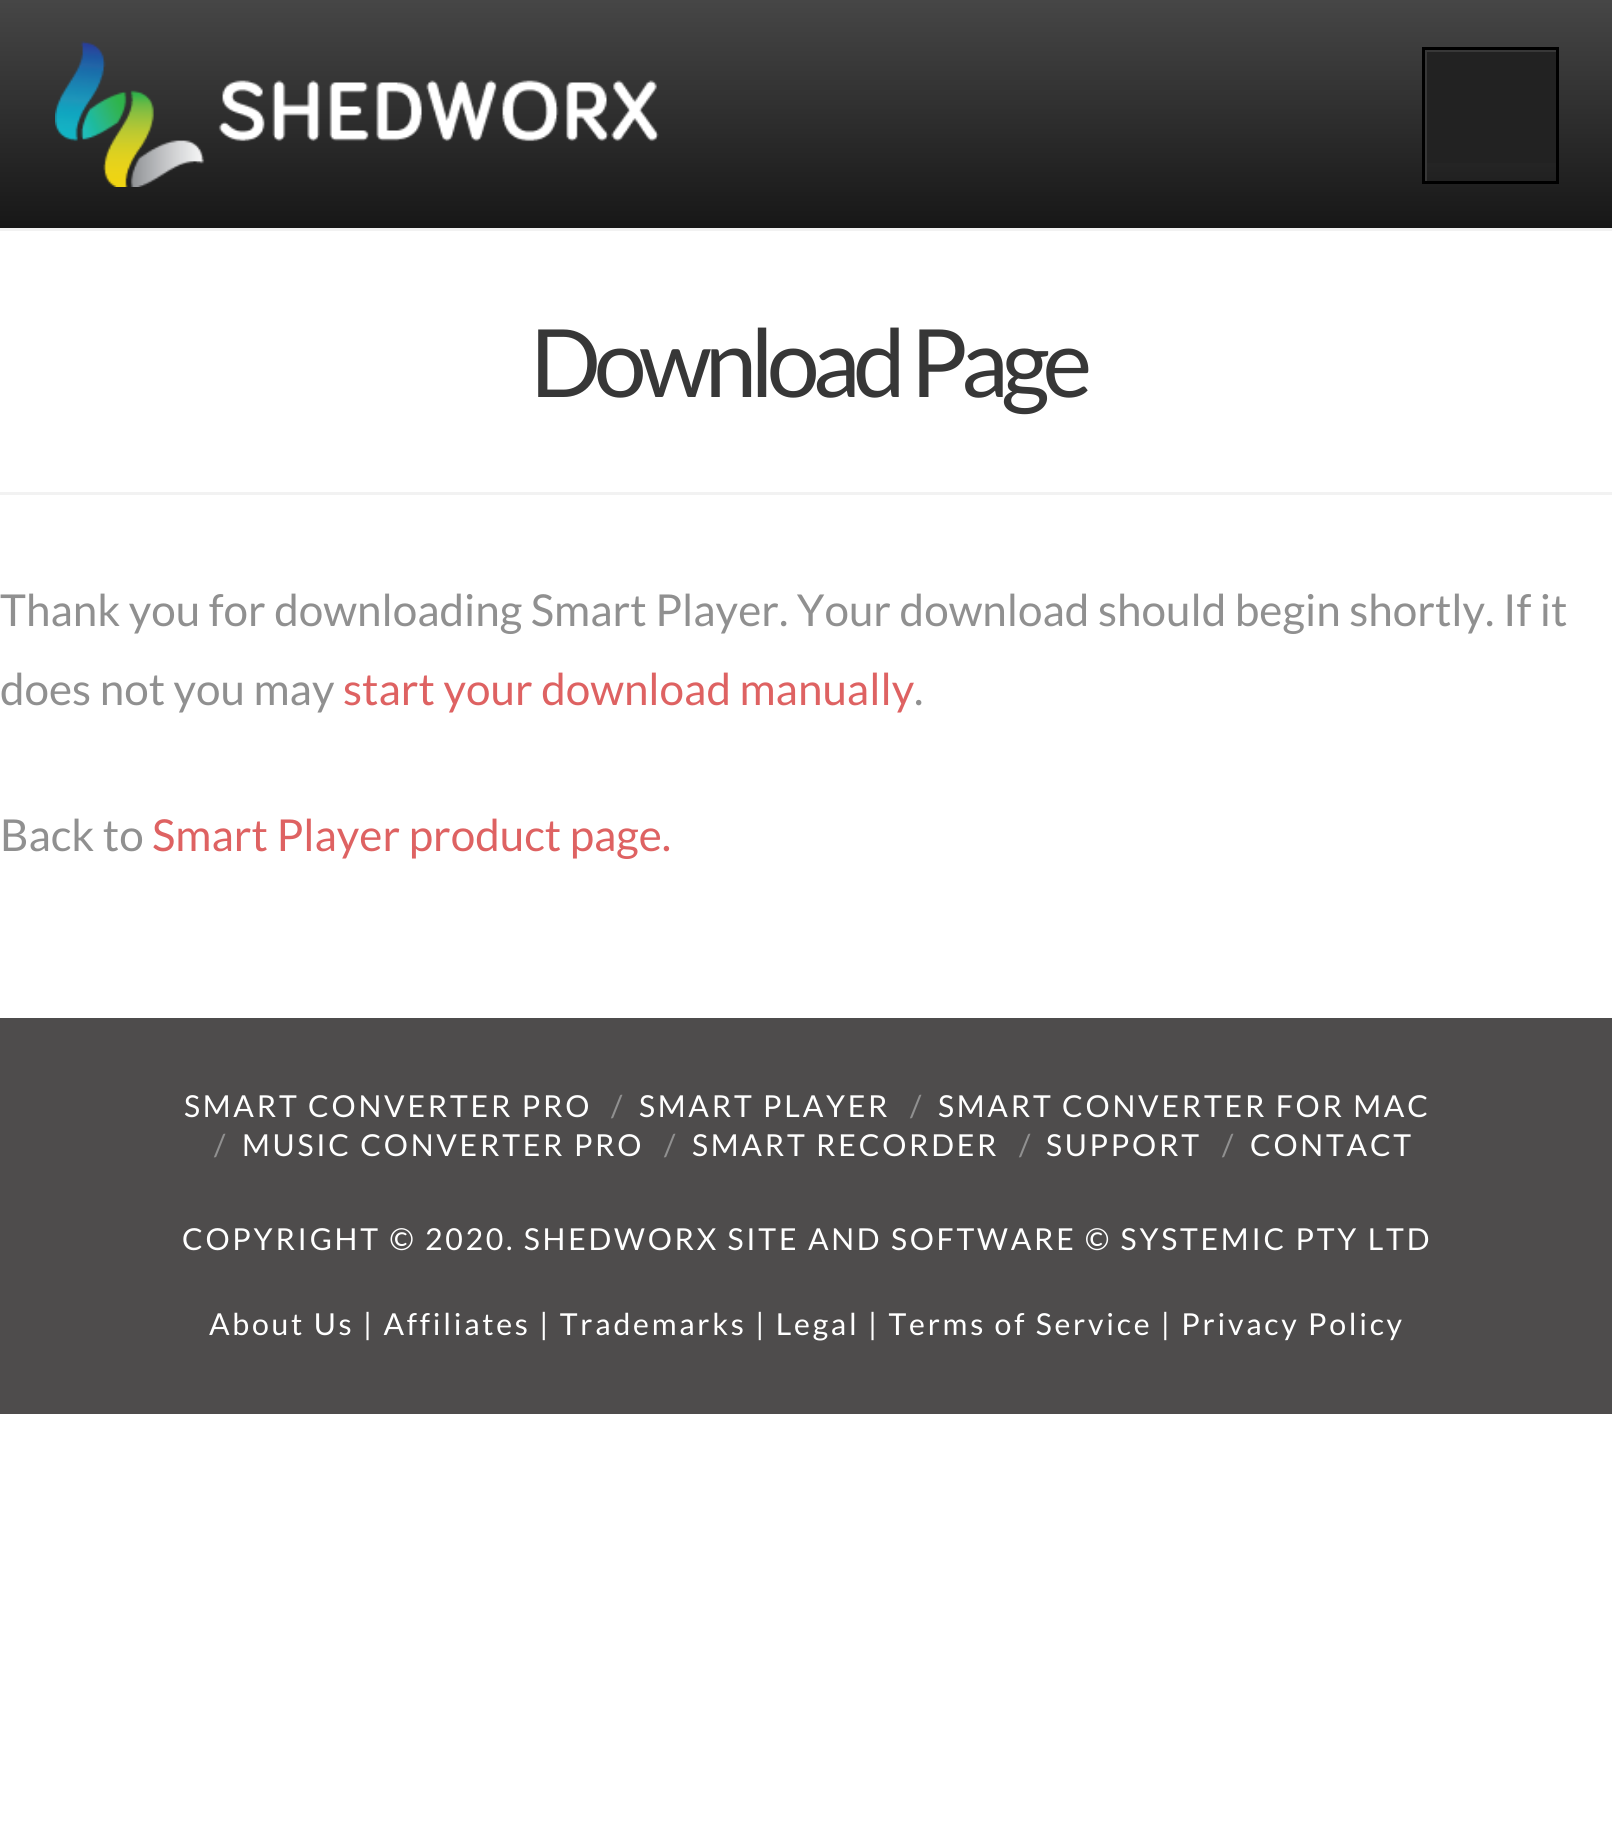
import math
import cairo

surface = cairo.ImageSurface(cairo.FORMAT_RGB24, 1612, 1826)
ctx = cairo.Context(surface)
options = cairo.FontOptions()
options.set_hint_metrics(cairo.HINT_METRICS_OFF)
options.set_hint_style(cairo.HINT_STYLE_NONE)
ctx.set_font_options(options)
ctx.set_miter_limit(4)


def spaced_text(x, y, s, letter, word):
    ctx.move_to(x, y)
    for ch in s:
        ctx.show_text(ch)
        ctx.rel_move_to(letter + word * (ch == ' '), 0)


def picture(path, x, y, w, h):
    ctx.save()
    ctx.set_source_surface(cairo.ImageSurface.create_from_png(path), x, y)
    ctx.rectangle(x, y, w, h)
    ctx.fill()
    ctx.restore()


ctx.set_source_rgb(1, 1, 1)
ctx.paint()
gradient = cairo.LinearGradient(807, 228, 807, 0)
gradient.add_color_stop_rgba(0, 0.09, 0.09, 0.09, 1)
gradient.add_color_stop_rgba(1, 0.275, 0.275, 0.275, 1)
ctx.set_source(gradient)
ctx.rectangle(0, 0, 1612, 228)
ctx.fill()
picture("img1.png", 55, 41, 604, 146)
ctx.set_source_rgb(0.133, 0.133, 0.133)
ctx.rectangle(1427, 52, 129, 111)
ctx.fill()
ctx.save()
ctx.rectangle(1425, 50, 132, 132)
ctx.clip()
ctx.set_source_rgb(0.22, 0.22, 0.22)
ctx.set_fill_rule(cairo.FILL_RULE_EVEN_ODD)
ctx.new_path()
ctx.move_to(1152, -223)
ctx.line_to(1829, -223)
ctx.line_to(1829, 454)
ctx.line_to(1152, 454)
ctx.close_path()
ctx.move_to(1427, 52)
ctx.line_to(1559, 52)
ctx.line_to(1559, 184)
ctx.line_to(1427, 184)
ctx.close_path()
ctx.fill()
ctx.restore()
ctx.rectangle(1423.5, 48.5, 134, 134)
ctx.set_source_rgb(0, 0, 0)
ctx.set_line_width(3)
ctx.stroke()
ctx.set_source_rgb(0.949, 0.949, 0.949)
ctx.rectangle(0, 228, 1612, 3)
ctx.fill()
ctx.rectangle(0, 492, 1612, 3)
ctx.fill()
ctx.select_font_face("Lato")
ctx.set_font_size(94.25)
ctx.set_source_rgb(0.216, 0.216, 0.216)
spaced_text(530, 397, "Download Page", -7, 0)
ctx.set_font_size(44)
ctx.set_source_rgb(0.565, 0.565, 0.565)
ctx.move_to(0, 626)
ctx.show_text("Thank you for downloading Smart Player. Your download should begin shortly. If it")
ctx.move_to(0, 705)
ctx.show_text("does not you may")
ctx.set_source_rgb(0.871, 0.384, 0.384)
ctx.move_to(343, 705)
ctx.show_text("start your download manually")
ctx.set_source_rgb(0.565, 0.565, 0.565)
ctx.move_to(914, 705)
ctx.show_text(".")
ctx.move_to(0, 851)
ctx.show_text("Back to")
ctx.set_source_rgb(0.871, 0.384, 0.384)
ctx.move_to(152, 851)
ctx.show_text("Smart Player product page.")
ctx.set_source_rgb(0.306, 0.298, 0.298)
ctx.rectangle(0, 1018, 1612, 396)
ctx.fill()
ctx.set_font_size(30.25)
ctx.set_source_rgb(1, 1, 1)
spaced_text(184, 1117, "SMART CONVERTER PRO", 2.75, 0)
ctx.set_source_rgb(0.565, 0.565, 0.565)
ctx.move_to(611, 1117)
ctx.show_text("/")
ctx.set_source_rgb(1, 1, 1)
spaced_text(639, 1117, "SMART PLAYER", 2.75, 0)
ctx.set_source_rgb(0.565, 0.565, 0.565)
ctx.move_to(910, 1117)
ctx.show_text("/")
ctx.set_source_rgb(1, 1, 1)
spaced_text(938, 1117, "SMART CONVERTER FOR MAC", 2.75, 0)
ctx.set_source_rgb(0.565, 0.565, 0.565)
ctx.move_to(214, 1156)
ctx.show_text("/")
ctx.set_source_rgb(1, 1, 1)
spaced_text(242, 1156, "MUSIC CONVERTER PRO", 2.75, 0)
ctx.set_source_rgb(0.565, 0.565, 0.565)
ctx.move_to(664, 1156)
ctx.show_text("/")
ctx.set_source_rgb(1, 1, 1)
spaced_text(692, 1156, "SMART RECORDER", 2.75, 0)
ctx.set_source_rgb(0.565, 0.565, 0.565)
ctx.move_to(1019, 1156)
ctx.show_text("/")
ctx.set_source_rgb(1, 1, 1)
spaced_text(1046, 1156, "SUPPORT", 2.75, 0)
ctx.set_source_rgb(0.565, 0.565, 0.565)
ctx.move_to(1222, 1156)
ctx.show_text("/")
ctx.set_source_rgb(1, 1, 1)
spaced_text(1250, 1156, "CONTACT", 2.75, 0)
spaced_text(182, 1250, "COPYRIGHT © 2020. SHEDWORX SITE AND SOFTWARE © SYSTEMIC PTY LTD", 2.75, 0)
spaced_text(209, 1335, "About Us | Affiliates | Trademarks | Legal | Terms of Service | Privacy Policy", 2.75, 0)
surface.write_to_png("page.png")
